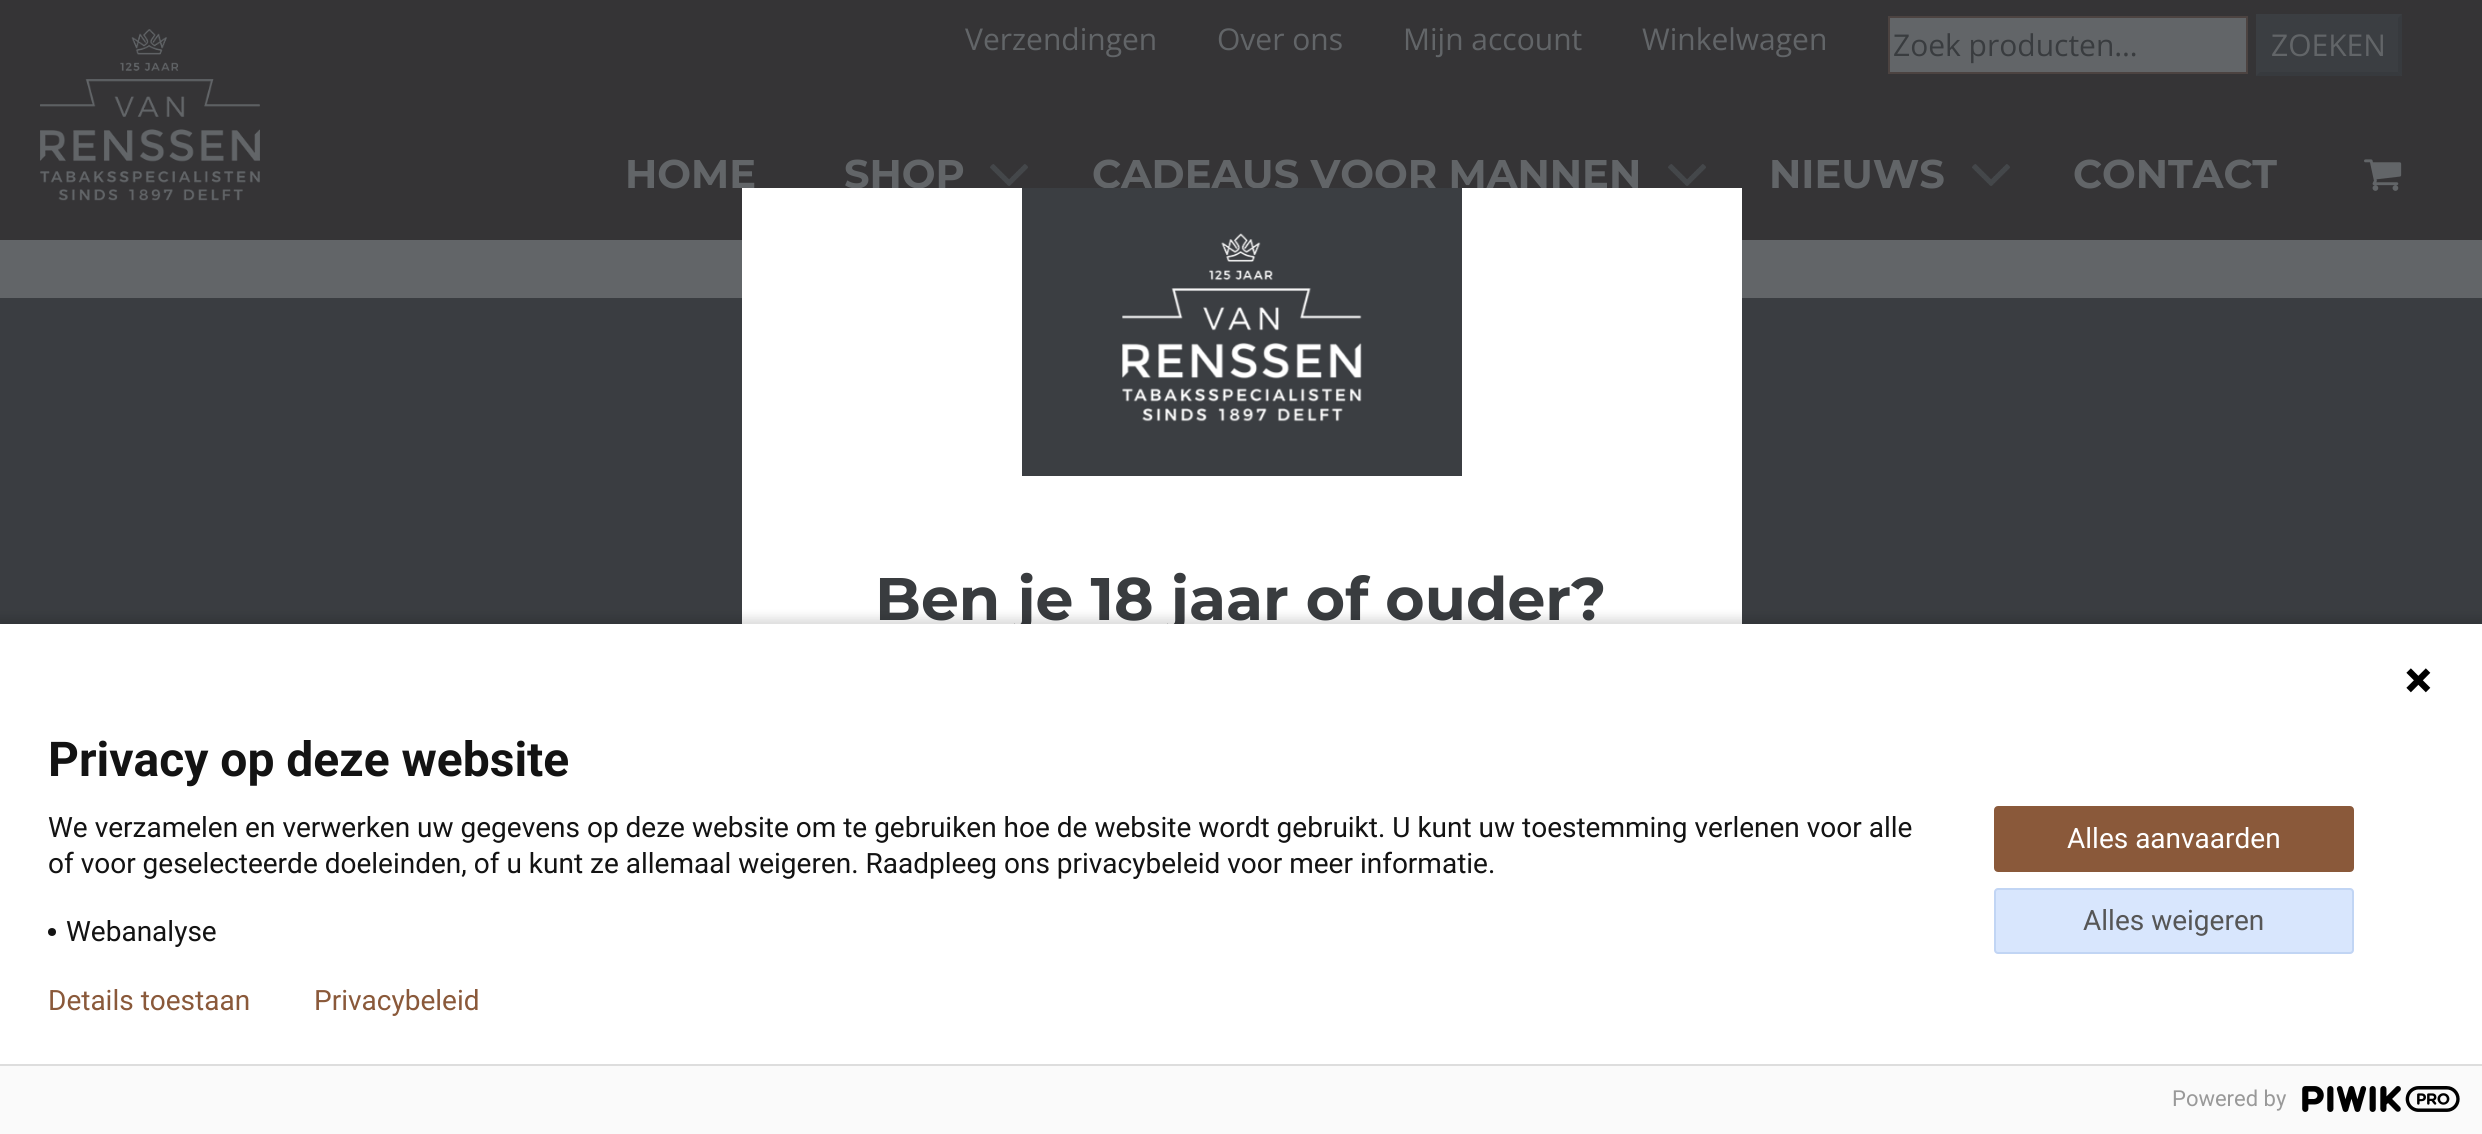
import math
import cairo

surface = cairo.ImageSurface(cairo.FORMAT_RGB24, 2482, 1134)
ctx = cairo.Context(surface)
options = cairo.FontOptions()
options.set_hint_metrics(cairo.HINT_METRICS_OFF)
options.set_hint_style(cairo.HINT_STYLE_NONE)
ctx.set_font_options(options)
ctx.set_miter_limit(4)


def round_rect(x, y, w, h, r):
    ctx.new_sub_path()
    for i, (u, v) in enumerate([(x + w - r, y + h - r), (x + r, y + h - r), (x + r, y + r), (x + w - r, y + r)]):
        ctx.arc(u, v, r, i * math.pi / 2, (i + 1) * math.pi / 2)
    ctx.close_path()


def shadow(x, y, w, h, r, blur, alpha):
    ctx.push_group_with_content(cairo.CONTENT_ALPHA)
    ctx.set_operator(cairo.OPERATOR_SOURCE)
    for i in range(15, -16, -2):
        e = blur * i / 6
        if min(w, h) + 2 * e > 0:
            ctx.set_source_rgba(0, 0, 0, alpha * math.erfc((i - 1) / 8.5) / 2)
            round_rect(x - e, y - e, w + 2 * e, h + 2 * e, max(0, min(r + e + blur * .6, min(w, h) / 2 + e)))
            ctx.fill()
    ctx.mask(ctx.pop_group())


def picture(path, x, y, w, h):
    ctx.save()
    ctx.set_source_surface(cairo.ImageSurface.create_from_png(path), x, y)
    ctx.rectangle(x, y, w, h)
    ctx.fill()
    ctx.restore()


ctx.set_source_rgb(0.384, 0.396, 0.408)
ctx.paint()
ctx.set_source_rgb(0.208, 0.204, 0.212)
ctx.rectangle(0, 0, 2482, 240)
ctx.fill()
picture("img1.png", 40, 29, 220, 172)
ctx.select_font_face("Open Sans")
ctx.set_font_size(30)
ctx.set_source_rgb(0.384, 0.396, 0.408)
ctx.move_to(965, 50)
ctx.show_text("Verzendingen")
ctx.move_to(1217, 50)
ctx.show_text("Over ons")
ctx.move_to(1403, 50)
ctx.show_text("Mijn account")
ctx.move_to(1642, 50)
ctx.show_text("Winkelwagen")
ctx.rectangle(1889, 17, 358, 56)
ctx.fill_preserve()
ctx.set_source_rgb(0.298, 0.263, 0.255)
ctx.stroke()
ctx.set_source_rgb(0.224, 0.235, 0.247)
ctx.move_to(1893, 56)
ctx.show_text("Zoek producten…")
ctx.set_source_rgb(0.231, 0.243, 0.259)
ctx.rectangle(2256, 14, 146, 62)
ctx.fill()
ctx.set_source_rgb(0.216, 0.227, 0.243)
ctx.new_path()
ctx.move_to(2402, 14)
ctx.line_to(2402, 76)
ctx.line_to(2398, 72)
ctx.line_to(2398, 18)
ctx.close_path()
ctx.fill()
ctx.new_path()
ctx.move_to(2402, 76)
ctx.line_to(2256, 76)
ctx.line_to(2260, 72)
ctx.line_to(2398, 72)
ctx.close_path()
ctx.fill()
ctx.set_source_rgb(0.384, 0.396, 0.408)
ctx.move_to(2271, 56)
ctx.show_text("ZOEKEN")
ctx.select_font_face("Montserrat", cairo.FONT_SLANT_NORMAL, cairo.FONT_WEIGHT_BOLD)
ctx.set_font_size(40)
ctx.move_to(625, 188)
ctx.show_text("HOME")
picture("img2.png", 990, 164, 38, 22)
ctx.move_to(844, 188)
ctx.show_text("SHOP")
picture("img2.png", 1668, 164, 38, 22)
ctx.move_to(1092, 188)
ctx.show_text("CADEAUS VOOR MANNEN")
picture("img2.png", 1972, 164, 38, 22)
ctx.move_to(1769, 188)
ctx.show_text("NIEUWS")
ctx.move_to(2073, 188)
ctx.show_text("CONTACT")
picture("img3.png", 2364, 159, 38, 32)
ctx.set_source_rgb(0.227, 0.239, 0.255)
ctx.rectangle(0, 298, 2482, 326)
ctx.fill()
ctx.set_source_rgb(1, 1, 1)
ctx.rectangle(742, 188, 1000, 436)
ctx.fill()
ctx.set_source_rgb(0.231, 0.243, 0.259)
ctx.rectangle(1022, 188, 440, 288)
ctx.fill()
picture("img4.png", 1122, 233, 240, 189)
ctx.set_font_size(60)
ctx.set_source_rgb(0.224, 0.235, 0.247)
ctx.move_to(875, 620)
ctx.show_text("Ben je 18 jaar of ouder?")
ctx.set_source_rgb(0, 0, 0)
shadow(-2, 618, 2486, 514, 0, 5, 0.14)
ctx.set_source_rgb(1, 1, 1)
ctx.rectangle(0, 624, 2482, 440)
ctx.fill()
picture("img5.png", 2406, 668, 25, 25)
ctx.select_font_face("Roboto", cairo.FONT_SLANT_NORMAL, cairo.FONT_WEIGHT_BOLD)
ctx.set_font_size(48)
ctx.set_source_rgb(0.075, 0.075, 0.075)
ctx.move_to(48, 776)
ctx.show_text("Privacy op deze website")
ctx.select_font_face("Roboto")
ctx.set_font_size(28)
ctx.move_to(48, 837)
ctx.show_text("We verzamelen en verwerken uw gegevens op deze website om te gebruiken hoe de website wordt gebruikt. U kunt uw toestemming verlenen voor alle")
ctx.move_to(48, 873)
ctx.show_text("of voor geselecteerde doeleinden, of u kunt ze allemaal weigeren. Raadpleeg ons privacybeleid voor meer informatie.")
ctx.new_path()
ctx.arc(52, 932, 4, 0, 2 * math.pi)
ctx.fill()
ctx.move_to(66, 941)
ctx.show_text("Webanalyse")
ctx.set_source_rgb(0.541, 0.349, 0.227)
round_rect(1995, 807, 358, 64, 3)
ctx.fill_preserve()
ctx.stroke()
ctx.set_source_rgb(1, 1, 1)
ctx.move_to(2067, 848)
ctx.show_text("Alles aanvaarden")
ctx.set_source_rgb(0.847, 0.902, 0.992)
round_rect(1994, 888, 360, 66, 4)
ctx.fill()
round_rect(1995, 889, 358, 64, 3)
ctx.set_source_rgba(0.043, 0.294, 0.702, 0.11)
ctx.stroke()
ctx.set_source_rgb(0.337, 0.337, 0.337)
ctx.move_to(2083, 930)
ctx.show_text("Alles weigeren")
ctx.set_source_rgb(0.541, 0.349, 0.227)
ctx.move_to(48, 1010)
ctx.show_text("Details toestaan")
ctx.move_to(314, 1010)
ctx.show_text("Privacybeleid")
ctx.set_source_rgb(0.98, 0.98, 0.98)
ctx.rectangle(0, 1066, 2482, 68)
ctx.fill()
ctx.set_source_rgb(0.867, 0.867, 0.867)
ctx.rectangle(0, 1064, 2482, 2)
ctx.fill()
ctx.set_font_size(22)
ctx.set_source_rgb(0.6, 0.6, 0.6)
ctx.move_to(2172, 1106)
ctx.show_text("Powered by")
picture("img6.png", 2302, 1086, 158, 26)
surface.write_to_png("page.png")
